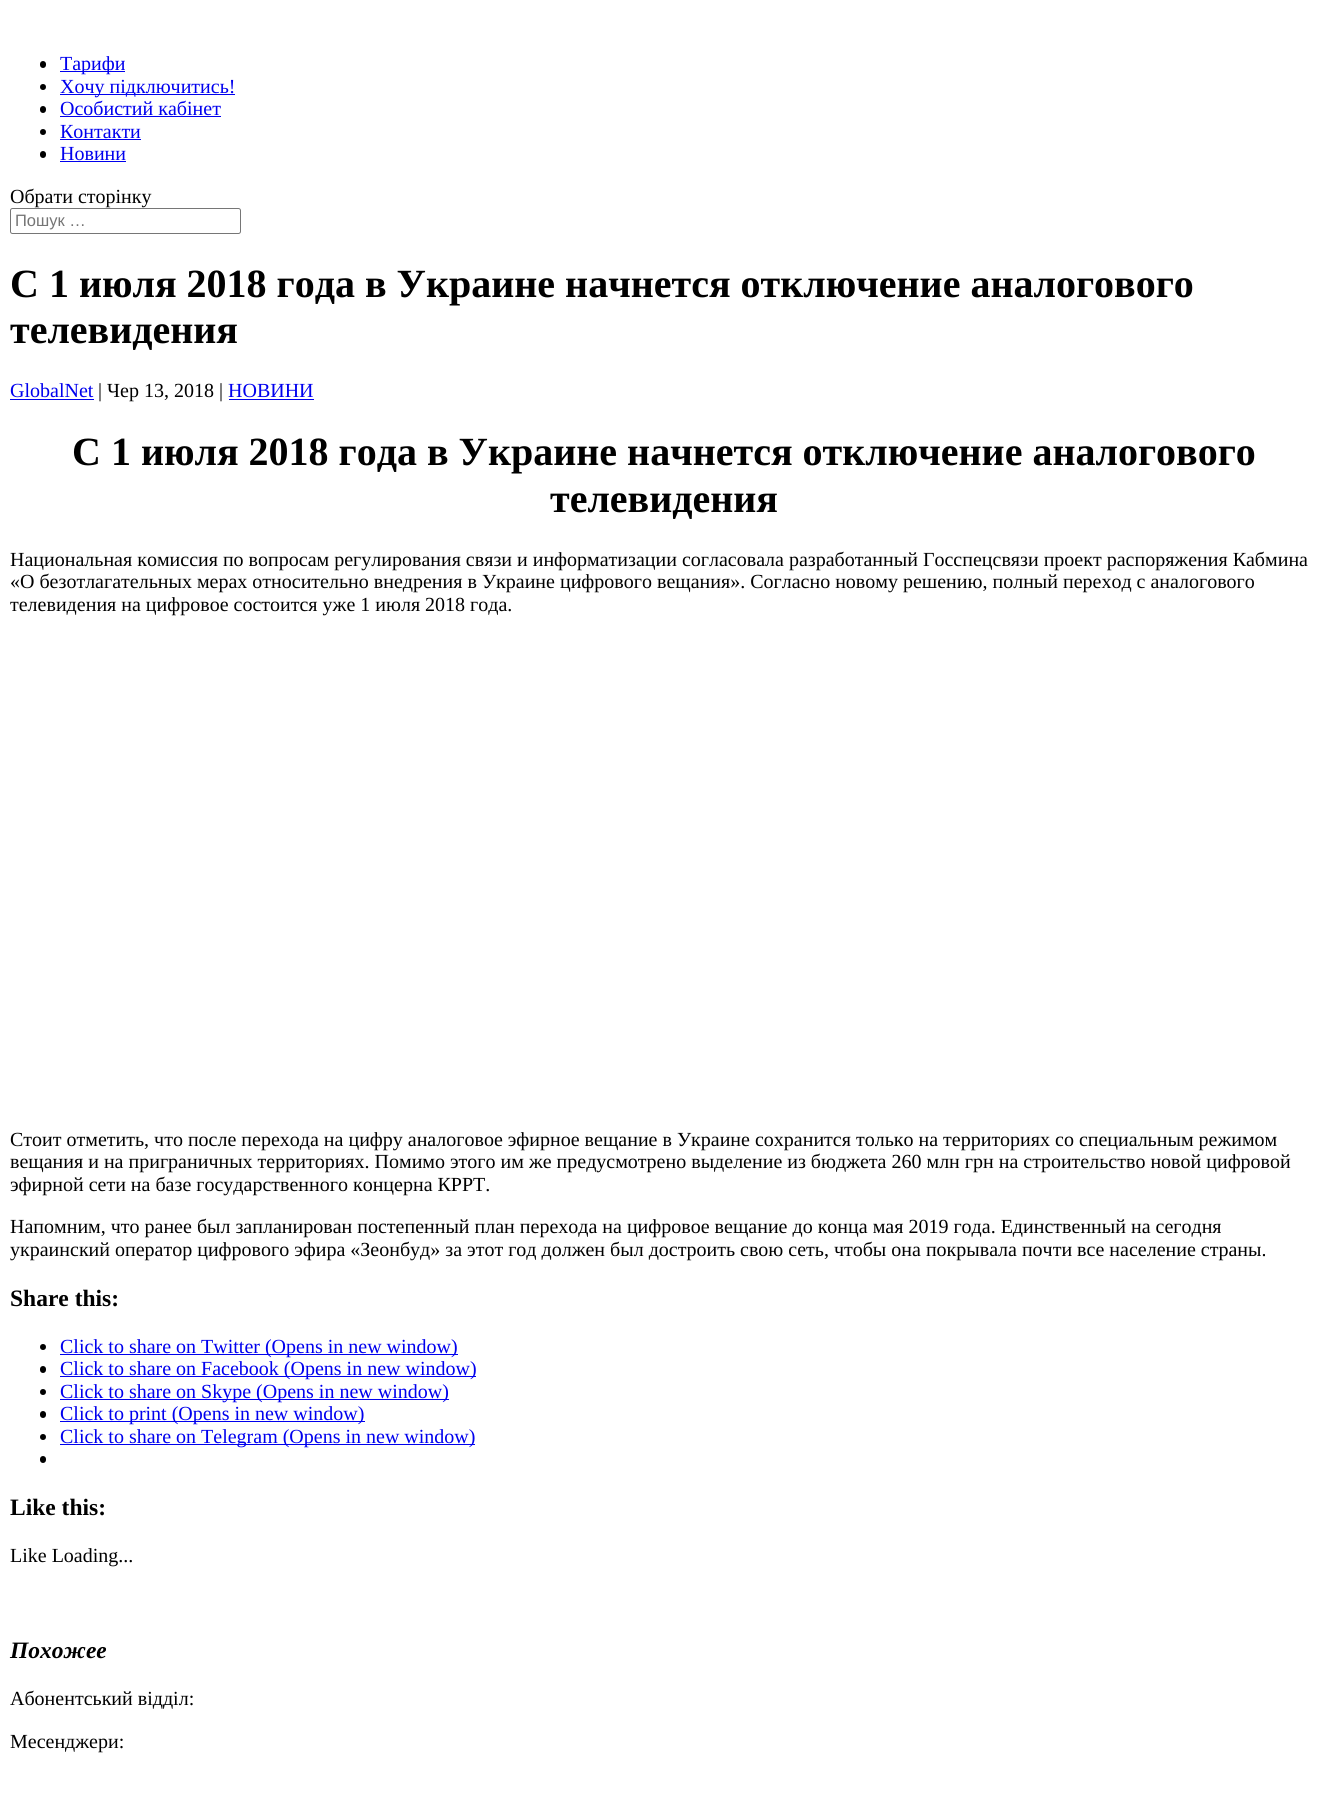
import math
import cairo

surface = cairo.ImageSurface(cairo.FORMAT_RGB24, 1327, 1796)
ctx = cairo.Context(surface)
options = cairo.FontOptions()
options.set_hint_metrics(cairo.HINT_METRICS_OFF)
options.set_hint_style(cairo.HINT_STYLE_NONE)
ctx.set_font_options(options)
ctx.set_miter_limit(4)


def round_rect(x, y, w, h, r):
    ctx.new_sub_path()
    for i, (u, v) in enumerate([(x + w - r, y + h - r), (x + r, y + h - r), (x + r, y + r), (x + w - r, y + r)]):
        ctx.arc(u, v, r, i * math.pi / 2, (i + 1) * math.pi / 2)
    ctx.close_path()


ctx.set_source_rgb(1, 1, 1)
ctx.paint()
ctx.set_source_rgb(0, 0, 0)
round_rect(40, 61, 6, 7, 3)
ctx.fill()
ctx.set_source_rgb(0, 0, 0.933)
ctx.rectangle(60, 71, 65, 1)
ctx.fill()
ctx.select_font_face("Liberation Serif")
ctx.set_font_size(20)
ctx.move_to(60, 70)
ctx.show_text("Тарифи")
ctx.set_source_rgb(0, 0, 0)
ctx.new_path()
ctx.arc(43, 87, 3, 0, 2 * math.pi)
ctx.fill()
ctx.set_source_rgb(0, 0, 0.933)
ctx.rectangle(60, 94, 175, 1)
ctx.fill()
ctx.move_to(60, 93)
ctx.show_text("Хочу підключитись!")
ctx.set_source_rgb(0, 0, 0)
round_rect(40, 106, 6, 7, 3)
ctx.fill()
ctx.set_source_rgb(0, 0, 0.933)
ctx.move_to(60, 115)
ctx.show_text("Особистий кабінет")
ctx.rectangle(60, 116, 161, 1)
ctx.fill()
ctx.set_source_rgb(0, 0, 0)
ctx.arc(43, 132, 3, 0, 2 * math.pi)
ctx.fill()
ctx.set_source_rgb(0, 0, 0.933)
ctx.move_to(60, 138)
ctx.show_text("Контакти")
ctx.rectangle(60, 139, 81, 1)
ctx.fill()
ctx.set_source_rgb(0, 0, 0)
round_rect(40, 151, 6, 7, 3)
ctx.fill()
ctx.set_source_rgb(0, 0, 0.933)
ctx.move_to(60, 160)
ctx.show_text("Новини")
ctx.rectangle(60, 161, 66, 1)
ctx.fill()
ctx.set_source_rgb(0, 0, 0)
ctx.move_to(10, 203)
ctx.show_text("Обрати сторінку")
round_rect(10.5, 208.5, 230, 25, 2)
ctx.set_source_rgb(0.463, 0.463, 0.463)
ctx.set_line_width(1)
ctx.stroke()
ctx.select_font_face("Liberation Sans")
ctx.set_font_size(16.5)
ctx.set_source_rgb(0.459, 0.459, 0.459)
ctx.move_to(15, 226)
ctx.show_text("Пошук …")
ctx.select_font_face("Liberation Serif", cairo.FONT_SLANT_NORMAL, cairo.FONT_WEIGHT_BOLD)
ctx.set_font_size(40)
ctx.set_source_rgb(0, 0, 0)
ctx.move_to(10, 297)
ctx.show_text("С 1 июля 2018 года в Украине начнется отключение аналогового")
ctx.move_to(10, 343)
ctx.show_text("телевидения")
ctx.select_font_face("Liberation Serif")
ctx.set_font_size(20)
ctx.set_source_rgb(0, 0, 0.933)
ctx.move_to(10, 397)
ctx.show_text("GlobalNet")
ctx.rectangle(10, 399, 84, 1)
ctx.fill()
ctx.set_source_rgb(0, 0, 0)
ctx.move_to(98, 397)
ctx.show_text("| Чер 13, 2018 |")
ctx.set_source_rgb(0, 0, 0.933)
ctx.move_to(228, 397)
ctx.show_text("НОВИНИ")
ctx.rectangle(229, 399, 85, 1)
ctx.fill()
ctx.select_font_face("Liberation Serif", cairo.FONT_SLANT_NORMAL, cairo.FONT_WEIGHT_BOLD)
ctx.set_font_size(40)
ctx.set_source_rgb(0, 0, 0)
ctx.move_to(72, 465)
ctx.show_text("С 1 июля 2018 года в Украине начнется отключение аналогового")
ctx.move_to(550, 512)
ctx.show_text("телевидения")
ctx.select_font_face("Liberation Serif")
ctx.set_font_size(20)
ctx.move_to(10, 566)
ctx.show_text("Национальная комиссия по вопросам регулирования связи и информатизации согласовала разработанный Госспецсвязи проект распоряжения Кабмина")
ctx.move_to(10, 588)
ctx.show_text("«О безотлагательных мерах относительно внедрения в Украине цифрового вещания». Согласно новому решению, полный переход с аналогового")
ctx.move_to(10, 611)
ctx.show_text("телевидения на цифровое состоится уже 1 июля 2018 года.")
ctx.move_to(10, 1146)
ctx.show_text("Стоит отметить, что после перехода на цифру аналоговое эфирное вещание в Украине сохранится только на территориях со специальным режимом")
ctx.move_to(10, 1168)
ctx.show_text("вещания и на приграничных территориях. Помимо этого им же предусмотрено выделение из бюджета 260 млн грн на строительство новой цифровой")
ctx.move_to(10, 1191)
ctx.show_text("эфирной сети на базе государственного концерна КРРТ.")
ctx.move_to(10, 1233)
ctx.show_text("Напомним, что ранее был запланирован постепенный план перехода на цифровое вещание до конца мая 2019 года. Единственный на сегодня")
ctx.move_to(10, 1256)
ctx.show_text("украинский оператор цифрового эфира «Зеонбуд» за этот год должен был достроить свою сеть, чтобы она покрывала почти все население страны.")
ctx.select_font_face("Liberation Serif", cairo.FONT_SLANT_NORMAL, cairo.FONT_WEIGHT_BOLD)
ctx.set_font_size(23.5)
ctx.move_to(10, 1306)
ctx.show_text("Share this:")
ctx.new_path()
ctx.arc(43, 1347, 3, 0, 2 * math.pi)
ctx.fill()
ctx.set_source_rgb(0, 0, 0.933)
ctx.rectangle(60, 1354, 398, 1)
ctx.fill()
ctx.select_font_face("Liberation Serif")
ctx.set_font_size(20)
ctx.move_to(60, 1353)
ctx.show_text("Click to share on Twitter (Opens in new window)")
ctx.set_source_rgb(0, 0, 0)
round_rect(40, 1366, 6, 7, 3)
ctx.fill()
ctx.set_source_rgb(0, 0, 0.933)
ctx.rectangle(60, 1376, 416, 1)
ctx.fill()
ctx.move_to(60, 1375)
ctx.show_text("Click to share on Facebook (Opens in new window)")
ctx.set_source_rgb(0, 0, 0)
ctx.new_path()
ctx.arc(43, 1392, 3, 0, 2 * math.pi)
ctx.fill()
ctx.set_source_rgb(0, 0, 0.933)
ctx.rectangle(60, 1399, 389, 1)
ctx.fill()
ctx.move_to(60, 1398)
ctx.show_text("Click to share on Skype (Opens in new window)")
ctx.set_source_rgb(0, 0, 0)
round_rect(40, 1411, 6, 7, 3)
ctx.fill()
ctx.set_source_rgb(0, 0, 0.933)
ctx.rectangle(60, 1421, 305, 1)
ctx.fill()
ctx.move_to(60, 1420)
ctx.show_text("Click to print (Opens in new window)")
ctx.set_source_rgb(0, 0, 0)
ctx.new_path()
ctx.arc(43, 1437, 3, 0, 2 * math.pi)
ctx.fill()
ctx.set_source_rgb(0, 0, 0.933)
ctx.rectangle(60, 1444, 415, 1)
ctx.fill()
ctx.move_to(60, 1443)
ctx.show_text("Click to share on Telegram (Opens in new window)")
ctx.set_source_rgb(0, 0, 0)
round_rect(40, 1456, 6, 7, 3)
ctx.fill()
ctx.select_font_face("Liberation Serif", cairo.FONT_SLANT_NORMAL, cairo.FONT_WEIGHT_BOLD)
ctx.set_font_size(23.5)
ctx.move_to(10, 1515)
ctx.show_text("Like this:")
ctx.select_font_face("Liberation Serif")
ctx.set_font_size(20)
ctx.move_to(10, 1562)
ctx.show_text("Like Loading...")
ctx.select_font_face("Liberation Serif", cairo.FONT_SLANT_ITALIC, cairo.FONT_WEIGHT_BOLD)
ctx.set_font_size(23.5)
ctx.move_to(10, 1658)
ctx.show_text("Похожее")
ctx.select_font_face("Liberation Serif")
ctx.set_font_size(20)
ctx.move_to(10, 1705)
ctx.show_text("Абонентський відділ:")
ctx.move_to(10, 1748)
ctx.show_text("Месенджери:")
surface.write_to_png("page.png")
